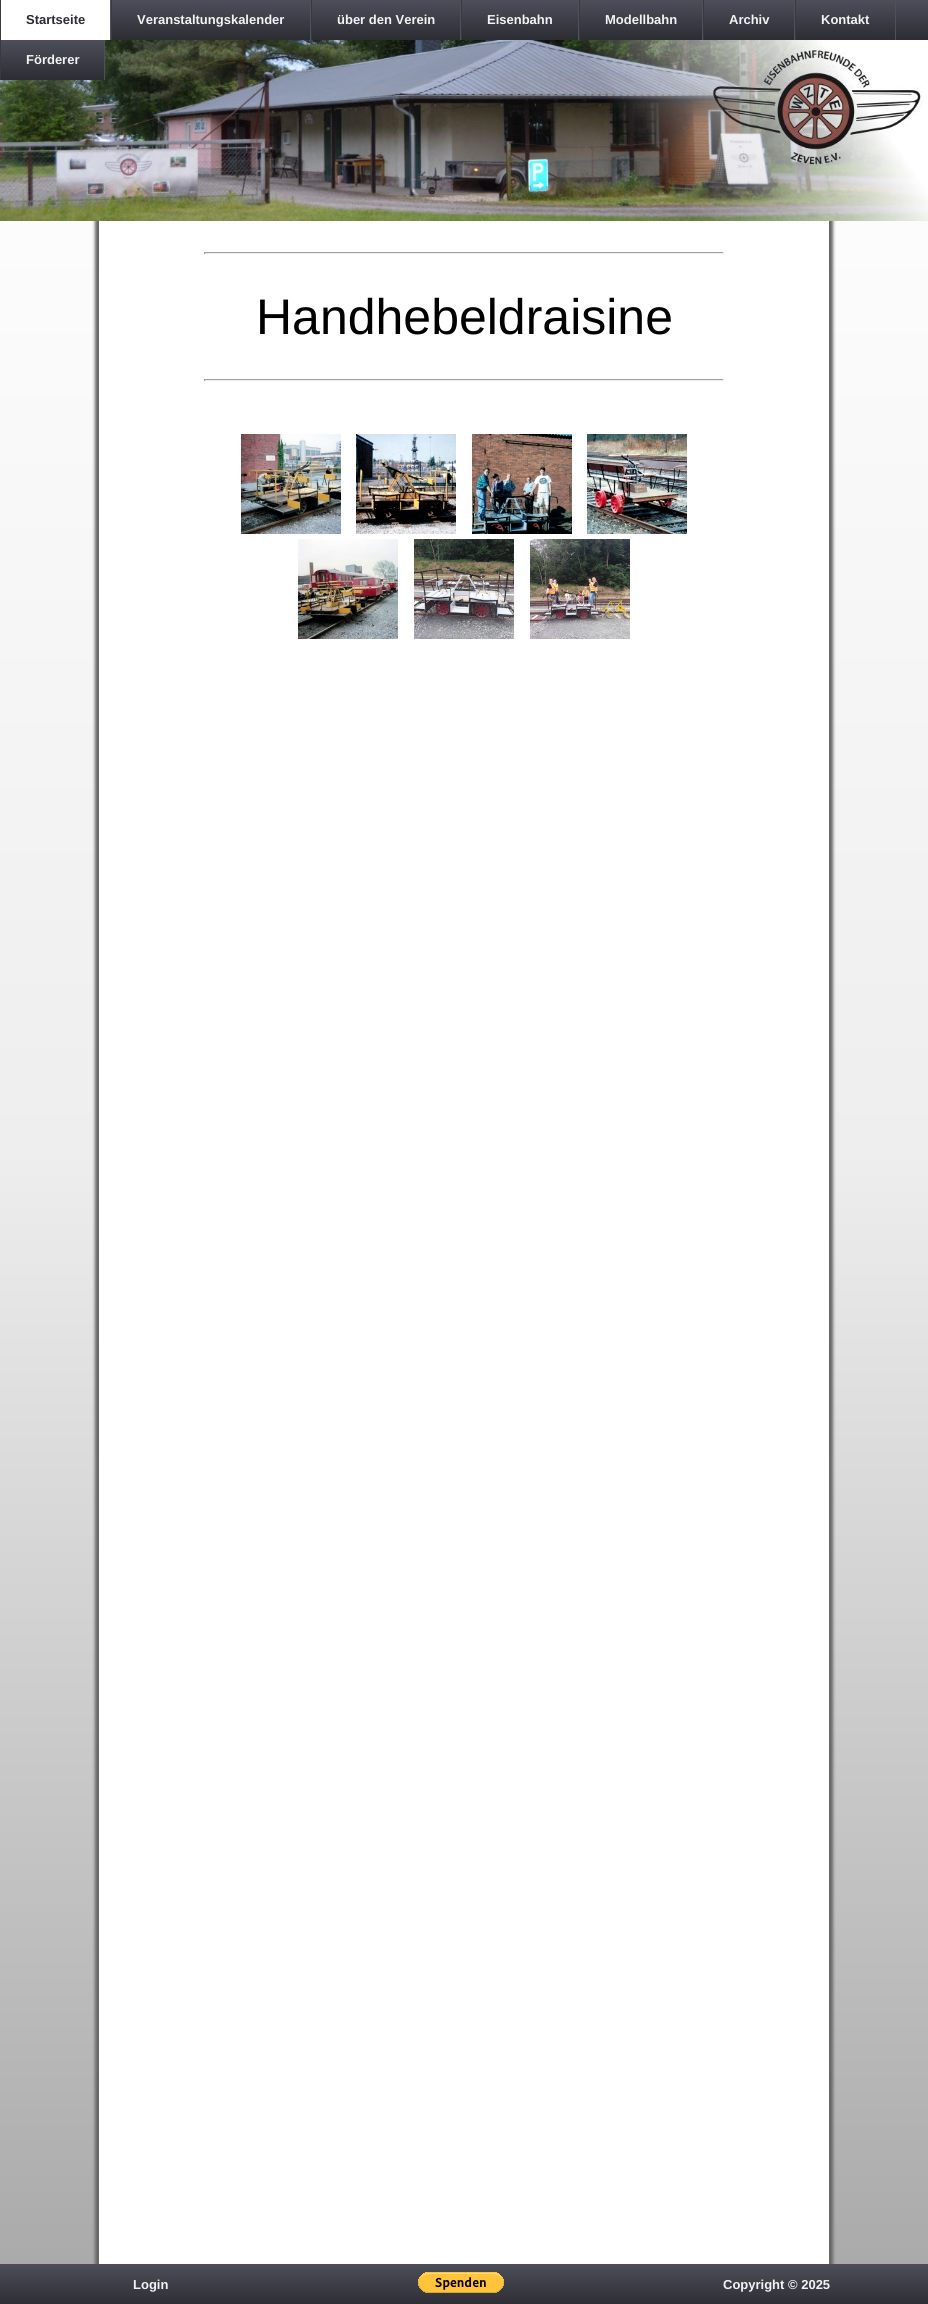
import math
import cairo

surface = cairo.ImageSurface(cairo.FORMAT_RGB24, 928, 2304)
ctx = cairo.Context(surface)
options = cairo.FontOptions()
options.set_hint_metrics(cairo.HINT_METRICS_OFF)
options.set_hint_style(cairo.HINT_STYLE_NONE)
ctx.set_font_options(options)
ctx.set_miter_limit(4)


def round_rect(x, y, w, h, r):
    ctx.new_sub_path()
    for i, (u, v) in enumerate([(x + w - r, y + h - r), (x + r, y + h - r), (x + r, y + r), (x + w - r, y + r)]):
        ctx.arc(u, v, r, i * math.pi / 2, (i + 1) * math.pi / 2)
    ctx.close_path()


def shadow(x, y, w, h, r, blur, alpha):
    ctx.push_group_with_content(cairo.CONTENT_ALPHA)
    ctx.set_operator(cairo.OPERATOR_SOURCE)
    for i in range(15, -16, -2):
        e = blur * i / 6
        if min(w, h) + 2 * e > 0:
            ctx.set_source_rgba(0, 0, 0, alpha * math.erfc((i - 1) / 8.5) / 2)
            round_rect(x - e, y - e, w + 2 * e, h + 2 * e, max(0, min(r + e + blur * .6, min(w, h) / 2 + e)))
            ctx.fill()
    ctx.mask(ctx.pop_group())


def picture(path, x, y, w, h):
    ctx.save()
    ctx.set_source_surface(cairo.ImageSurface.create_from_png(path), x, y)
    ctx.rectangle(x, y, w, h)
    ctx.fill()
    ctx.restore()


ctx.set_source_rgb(1, 1, 1)
ctx.paint()
gradient = cairo.LinearGradient(464, 0, 464, 40)
gradient.add_color_stop_rgba(0, 0.298, 0.306, 0.353, 1)
gradient.add_color_stop_rgba(1, 0.173, 0.176, 0.2, 1)
ctx.set_source(gradient)
ctx.rectangle(112, 0, 816, 40)
ctx.fill()
ctx.set_source_rgb(0.31, 0.314, 0.345)
ctx.rectangle(110, 0, 1, 40)
ctx.fill()
gradient = cairo.LinearGradient(464, 40, 464, 2264)
gradient.add_color_stop_rgba(0, 1, 1, 1, 1)
gradient.add_color_stop_rgba(0.5, 0.933, 0.933, 0.933, 1)
gradient.add_color_stop_rgba(1, 0.667, 0.667, 0.667, 1)
ctx.set_source(gradient)
ctx.rectangle(0, 221, 928, 2043)
ctx.fill()
ctx.set_source_rgb(0.4, 0.4, 0.4)
shadow(95, 219, 730, 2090, 0, 1.5, 1)
shadow(103, 219, 730, 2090, 0, 1.5, 1)
picture("img1.png", 0, 40, 928, 181)
ctx.set_source_rgb(0.224, 0.224, 0.259)
ctx.rectangle(0, 0, 1, 80)
ctx.fill()
ctx.select_font_face("Liberation Sans", cairo.FONT_SLANT_NORMAL, cairo.FONT_WEIGHT_BOLD)
ctx.set_font_size(13)
ctx.set_source_rgb(0.173, 0.176, 0.2)
ctx.move_to(26, 24)
ctx.show_text("Startseite")
ctx.set_source_rgb(0.31, 0.314, 0.345)
ctx.rectangle(310, 0, 1, 40)
ctx.fill()
ctx.set_source_rgb(0.224, 0.224, 0.259)
ctx.rectangle(111, 0, 1, 40)
ctx.fill()
ctx.set_source_rgb(0.953, 0.953, 0.953)
ctx.move_to(137, 24)
ctx.show_text("Veranstaltungskalender")
ctx.set_source_rgb(0.31, 0.314, 0.345)
ctx.rectangle(460, 0, 1, 40)
ctx.fill()
ctx.set_source_rgb(0.224, 0.224, 0.259)
ctx.rectangle(311, 0, 1, 40)
ctx.fill()
ctx.set_source_rgb(0.953, 0.953, 0.953)
ctx.move_to(337, 24)
ctx.show_text("über den Verein")
ctx.set_source_rgb(0.31, 0.314, 0.345)
ctx.rectangle(578, 0, 1, 40)
ctx.fill()
ctx.set_source_rgb(0.224, 0.224, 0.259)
ctx.rectangle(461, 0, 1, 40)
ctx.fill()
ctx.set_source_rgb(0.953, 0.953, 0.953)
ctx.move_to(487, 24)
ctx.show_text("Eisenbahn")
ctx.set_source_rgb(0.31, 0.314, 0.345)
ctx.rectangle(702, 0, 1, 40)
ctx.fill()
ctx.set_source_rgb(0.224, 0.224, 0.259)
ctx.rectangle(579, 0, 1, 40)
ctx.fill()
ctx.set_source_rgb(0.953, 0.953, 0.953)
ctx.move_to(605, 24)
ctx.show_text("Modellbahn")
ctx.set_source_rgb(0.31, 0.314, 0.345)
ctx.rectangle(794, 0, 1, 40)
ctx.fill()
ctx.set_source_rgb(0.224, 0.224, 0.259)
ctx.rectangle(703, 0, 1, 40)
ctx.fill()
ctx.set_source_rgb(0.953, 0.953, 0.953)
ctx.move_to(729, 24)
ctx.show_text("Archiv")
ctx.set_source_rgb(0.31, 0.314, 0.345)
ctx.rectangle(895, 0, 1, 40)
ctx.fill()
ctx.set_source_rgb(0.224, 0.224, 0.259)
ctx.rectangle(795, 0, 1, 40)
ctx.fill()
ctx.set_source_rgb(0.953, 0.953, 0.953)
ctx.move_to(821, 24)
ctx.show_text("Kontakt")
gradient = cairo.LinearGradient(53, 40, 53, 80)
gradient.add_color_stop_rgba(0, 0.298, 0.306, 0.353, 1)
gradient.add_color_stop_rgba(1, 0.173, 0.176, 0.2, 1)
ctx.set_source(gradient)
ctx.rectangle(1, 40, 103, 40)
ctx.fill()
ctx.set_source_rgb(0.31, 0.314, 0.345)
ctx.rectangle(104, 40, 1, 40)
ctx.fill()
ctx.set_source_rgb(0.953, 0.953, 0.953)
ctx.move_to(26, 64)
ctx.show_text("Förderer")
ctx.set_source_rgb(1, 1, 1)
ctx.rectangle(99, 221, 730, 2043)
ctx.fill()
ctx.set_source_rgb(0.624, 0.624, 0.624)
ctx.rectangle(204, 252, 520, 1)
ctx.fill()
ctx.set_source_rgb(0.933, 0.933, 0.933)
ctx.rectangle(723, 252, 1, 2)
ctx.fill()
ctx.rectangle(204, 253, 520, 1)
ctx.fill()
ctx.set_source_rgb(0.624, 0.624, 0.624)
ctx.rectangle(204, 252, 1, 2)
ctx.fill()
ctx.select_font_face("Liberation Sans")
ctx.set_font_size(50)
ctx.set_source_rgb(0, 0, 0)
ctx.move_to(256, 334)
ctx.show_text("Handhebeldraisine")
ctx.set_source_rgb(0.624, 0.624, 0.624)
ctx.rectangle(204, 379, 520, 1)
ctx.fill()
ctx.set_source_rgb(0.933, 0.933, 0.933)
ctx.rectangle(723, 379, 1, 2)
ctx.fill()
ctx.rectangle(204, 380, 520, 1)
ctx.fill()
ctx.set_source_rgb(0.624, 0.624, 0.624)
ctx.rectangle(204, 379, 1, 2)
ctx.fill()
picture("img2.png", 241, 434, 100, 100)
picture("img3.png", 356, 434, 100, 100)
picture("img4.png", 472, 434, 100, 100)
picture("img5.png", 587, 434, 100, 100)
picture("img6.png", 298, 539, 100, 100)
picture("img7.png", 414, 539, 100, 100)
picture("img8.png", 530, 539, 100, 100)
gradient = cairo.LinearGradient(464, 2264, 464, 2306)
gradient.add_color_stop_rgba(0, 0.298, 0.306, 0.353, 1)
gradient.add_color_stop_rgba(1, 0.173, 0.176, 0.2, 1)
ctx.set_source(gradient)
ctx.rectangle(0, 2264, 928, 40)
ctx.fill()
ctx.select_font_face("Liberation Sans", cairo.FONT_SLANT_NORMAL, cairo.FONT_WEIGHT_BOLD)
ctx.set_font_size(13)
ctx.set_source_rgb(0.953, 0.953, 0.953)
ctx.move_to(133, 2289)
ctx.show_text("Login")
picture("img9.png", 418, 2272, 86, 21)
ctx.move_to(723, 2289)
ctx.show_text("Copyright © 2025")
surface.write_to_png("page.png")
